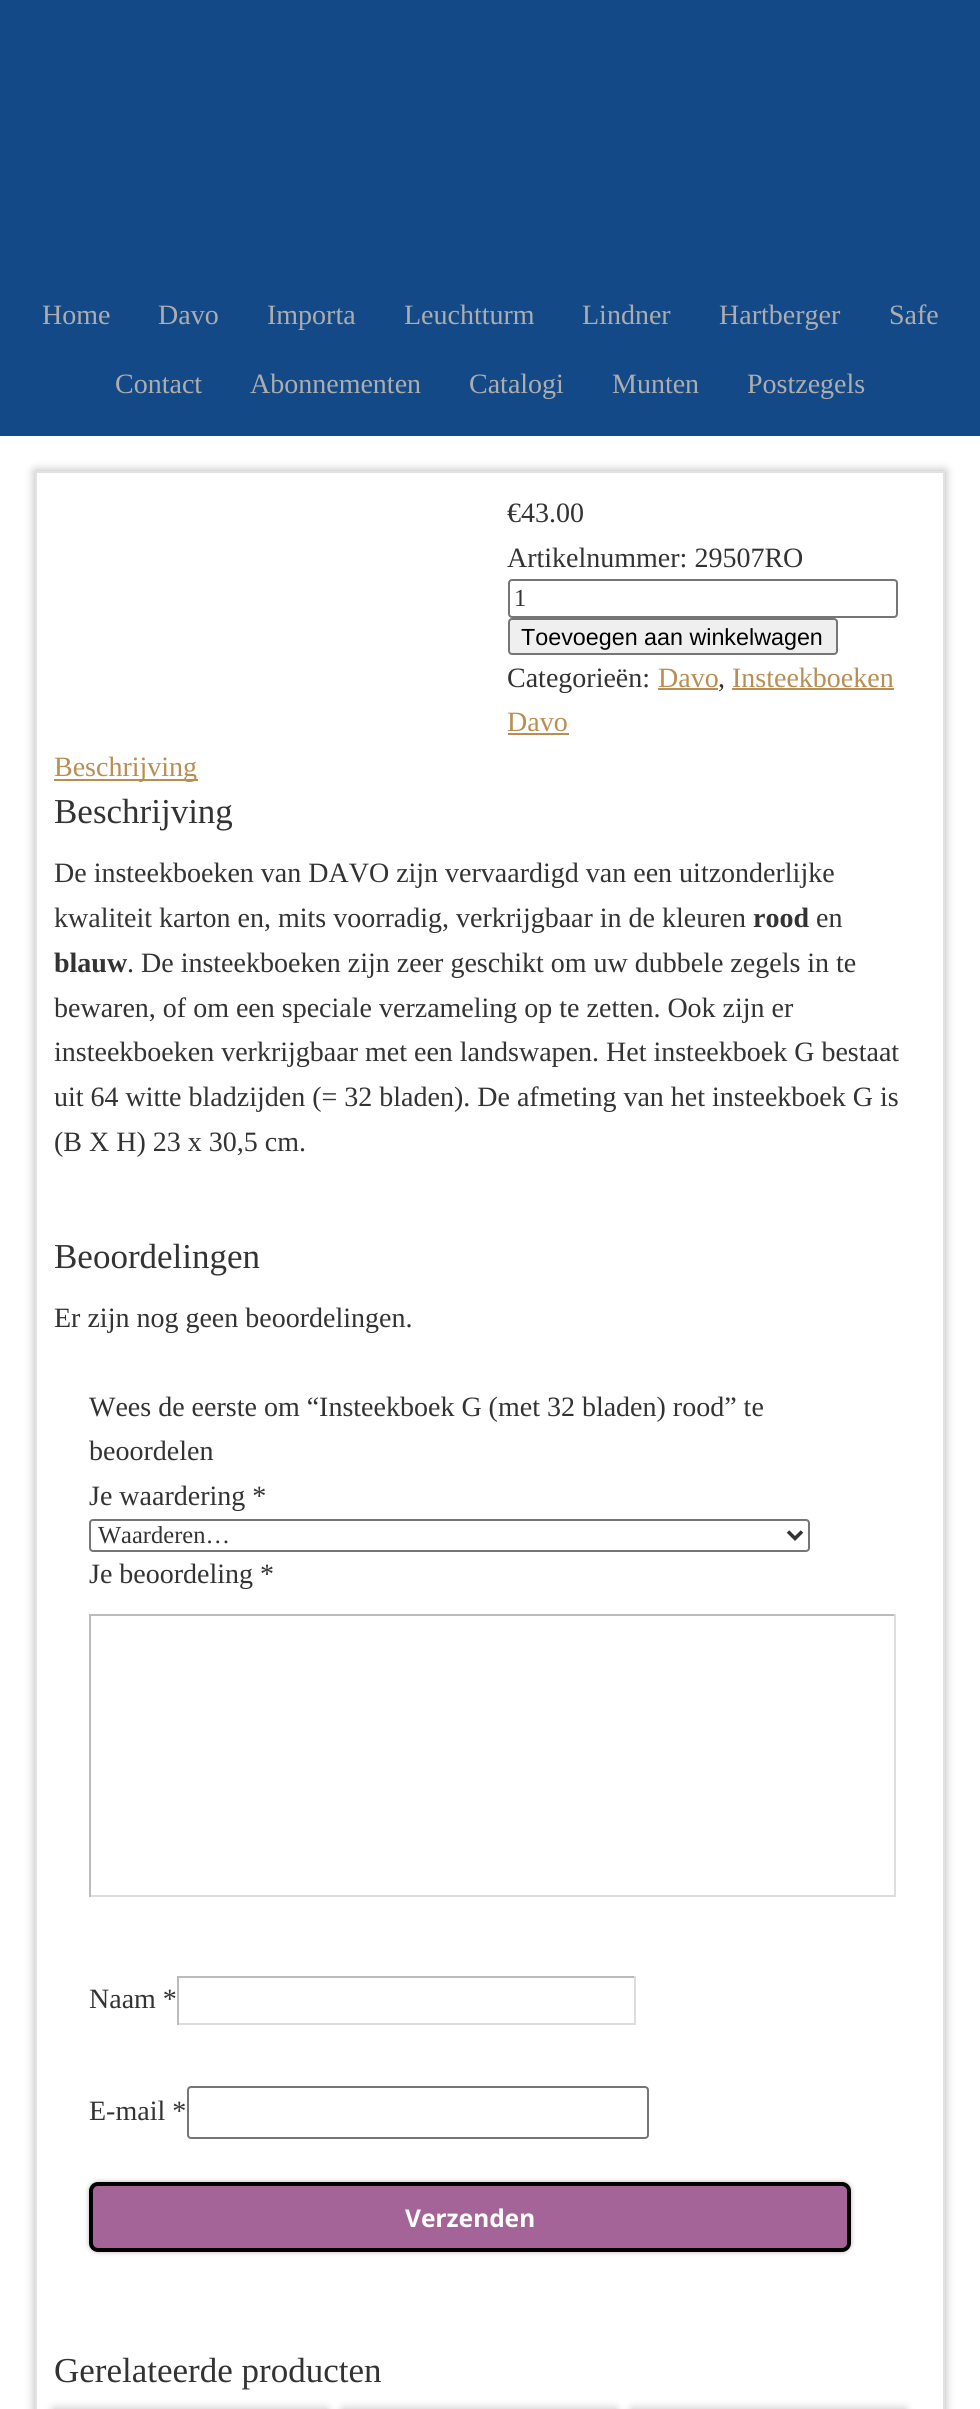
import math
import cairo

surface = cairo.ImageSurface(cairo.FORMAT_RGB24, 980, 2409)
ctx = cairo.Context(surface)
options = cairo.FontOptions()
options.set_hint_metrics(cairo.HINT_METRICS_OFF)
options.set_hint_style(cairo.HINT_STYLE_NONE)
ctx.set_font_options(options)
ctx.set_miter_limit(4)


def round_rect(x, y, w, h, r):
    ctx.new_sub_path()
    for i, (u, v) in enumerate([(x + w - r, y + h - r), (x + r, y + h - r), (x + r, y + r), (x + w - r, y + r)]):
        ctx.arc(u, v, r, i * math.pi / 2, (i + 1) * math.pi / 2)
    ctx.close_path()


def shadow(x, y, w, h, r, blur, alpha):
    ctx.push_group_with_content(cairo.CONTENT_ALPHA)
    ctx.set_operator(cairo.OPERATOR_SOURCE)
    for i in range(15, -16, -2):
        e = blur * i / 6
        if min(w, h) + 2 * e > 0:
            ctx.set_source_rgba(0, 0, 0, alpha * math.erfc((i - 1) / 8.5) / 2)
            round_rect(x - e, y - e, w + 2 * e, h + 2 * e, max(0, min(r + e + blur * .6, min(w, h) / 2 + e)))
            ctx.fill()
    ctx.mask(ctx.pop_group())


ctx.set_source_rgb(1, 1, 1)
ctx.paint()
ctx.set_source_rgb(0.075, 0.286, 0.529)
ctx.rectangle(0, 0, 980, 436)
ctx.fill()
ctx.select_font_face("Liberation Serif")
ctx.set_font_size(28)
ctx.set_source_rgb(0.678, 0.678, 0.678)
ctx.move_to(42, 324)
ctx.show_text("Home")
ctx.move_to(158, 324)
ctx.show_text("Davo")
ctx.move_to(267, 324)
ctx.show_text("Importa")
ctx.move_to(404, 324)
ctx.show_text("Leuchtturm")
ctx.move_to(582, 324)
ctx.show_text("Lindner")
ctx.move_to(719, 324)
ctx.show_text("Hartberger")
ctx.move_to(889, 324)
ctx.show_text("Safe")
ctx.move_to(115, 393)
ctx.show_text("Contact")
ctx.move_to(250, 393)
ctx.show_text("Abonnementen")
ctx.move_to(469, 393)
ctx.show_text("Catalogi")
ctx.move_to(612, 393)
ctx.show_text("Munten")
ctx.move_to(747, 393)
ctx.show_text("Postzegels")
ctx.save()
ctx.set_fill_rule(cairo.FILL_RULE_EVEN_ODD)
ctx.new_path()
ctx.move_to(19, 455)
ctx.line_to(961, 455)
ctx.line_to(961, 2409)
ctx.line_to(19, 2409)
ctx.close_path()
ctx.move_to(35, 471)
ctx.line_to(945, 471)
ctx.line_to(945, 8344)
ctx.line_to(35, 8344)
ctx.close_path()
ctx.clip()
ctx.set_source_rgb(0, 0, 0)
shadow(35, 471, 910, 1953, 0, 5, 0.3)
ctx.restore()
ctx.rectangle(36, 472, 908, 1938)
ctx.set_source_rgb(0.886, 0.886, 0.886)
ctx.stroke()
ctx.set_source_rgb(0.2, 0.2, 0.2)
ctx.move_to(507, 522)
ctx.show_text("€43.00")
ctx.move_to(507, 567)
ctx.show_text("Artikelnummer: 29507RO")
round_rect(509, 580, 388, 37, 3)
ctx.set_source_rgb(0.463, 0.463, 0.463)
ctx.stroke()
ctx.set_font_size(24.5)
ctx.set_source_rgb(0.2, 0.2, 0.2)
ctx.move_to(514, 606)
ctx.show_text("1")
ctx.set_source_rgb(0.937, 0.937, 0.937)
round_rect(509, 619, 328, 35, 3)
ctx.fill_preserve()
ctx.set_source_rgb(0.463, 0.463, 0.463)
ctx.stroke()
ctx.select_font_face("Liberation Sans")
ctx.set_font_size(23.3)
ctx.set_source_rgb(0, 0, 0)
ctx.move_to(521, 645)
ctx.show_text("Toevoegen aan winkelwagen")
ctx.select_font_face("Liberation Serif")
ctx.set_font_size(28)
ctx.set_source_rgb(0.2, 0.2, 0.2)
ctx.move_to(507, 687)
ctx.show_text("Categorieën:")
ctx.set_source_rgb(0.722, 0.557, 0.322)
ctx.move_to(658, 687)
ctx.show_text("Davo")
ctx.set_source_rgb(0.2, 0.2, 0.2)
ctx.move_to(718, 687)
ctx.show_text(",")
ctx.set_source_rgb(0.722, 0.557, 0.322)
ctx.rectangle(658, 688, 60, 2)
ctx.fill()
ctx.rectangle(732, 688, 162, 2)
ctx.fill()
ctx.move_to(732, 687)
ctx.show_text("Insteekboeken")
ctx.move_to(507, 731)
ctx.show_text("Davo")
ctx.rectangle(508, 733, 61, 2)
ctx.fill()
ctx.rectangle(54, 779, 144, 2)
ctx.fill()
ctx.move_to(54, 776)
ctx.show_text("Beschrijving")
ctx.set_font_size(35)
ctx.set_source_rgb(0.2, 0.2, 0.2)
ctx.move_to(54, 823)
ctx.show_text("Beschrijving")
ctx.set_font_size(28)
ctx.move_to(54, 882)
ctx.show_text("De insteekboeken van DAVO zijn vervaardigd van een uitzonderlijke")
ctx.move_to(54, 927)
ctx.show_text("kwaliteit karton en, mits voorradig, verkrijgbaar in de kleuren")
ctx.select_font_face("Liberation Serif", cairo.FONT_SLANT_NORMAL, cairo.FONT_WEIGHT_BOLD)
ctx.move_to(753, 927)
ctx.show_text("rood")
ctx.select_font_face("Liberation Serif")
ctx.move_to(816, 927)
ctx.show_text("en")
ctx.select_font_face("Liberation Serif", cairo.FONT_SLANT_NORMAL, cairo.FONT_WEIGHT_BOLD)
ctx.move_to(54, 972)
ctx.show_text("blauw")
ctx.select_font_face("Liberation Serif")
ctx.move_to(127, 972)
ctx.show_text(". De insteekboeken zijn zeer geschikt om uw dubbele zegels in te")
ctx.move_to(54, 1017)
ctx.show_text("bewaren, of om een speciale verzameling op te zetten. Ook zijn er")
ctx.move_to(54, 1061)
ctx.show_text("insteekboeken verkrijgbaar met een landswapen. Het insteekboek G bestaat")
ctx.move_to(54, 1106)
ctx.show_text("uit 64 witte bladzijden (= 32 bladen). De afmeting van het insteekboek G is")
ctx.move_to(54, 1151)
ctx.show_text("(B X H) 23 x 30,5 cm.")
ctx.set_font_size(35)
ctx.move_to(54, 1268)
ctx.show_text("Beoordelingen")
ctx.set_font_size(28)
ctx.move_to(54, 1327)
ctx.show_text("Er zijn nog geen beoordelingen.")
ctx.move_to(89, 1416)
ctx.show_text("Wees de eerste om “Insteekboek G (met 32 bladen) rood” te")
ctx.move_to(89, 1460)
ctx.show_text("beoordelen")
ctx.move_to(89, 1505)
ctx.show_text("Je waardering *")
round_rect(90, 1520, 719, 31, 3)
ctx.set_source_rgb(0.463, 0.463, 0.463)
ctx.stroke()
ctx.new_path()
ctx.move_to(788, 1531.5)
ctx.line_to(795, 1538.5)
ctx.line_to(802, 1531.5)
ctx.set_source_rgb(0.2, 0.2, 0.2)
ctx.set_line_width(3.5)
ctx.stroke()
ctx.set_font_size(24.5)
ctx.move_to(98, 1543)
ctx.show_text("Waarderen…")
ctx.set_font_size(28)
ctx.move_to(89, 1583)
ctx.show_text("Je beoordeling *")
ctx.set_source_rgb(0.733, 0.733, 0.733)
ctx.rectangle(89, 1614, 807, 2)
ctx.fill()
ctx.set_source_rgb(0.867, 0.867, 0.867)
ctx.rectangle(894, 1614, 2, 283)
ctx.fill()
ctx.rectangle(89, 1895, 807, 2)
ctx.fill()
ctx.set_source_rgb(0.733, 0.733, 0.733)
ctx.rectangle(89, 1614, 2, 283)
ctx.fill()
ctx.set_source_rgb(0.2, 0.2, 0.2)
ctx.move_to(89, 2008)
ctx.show_text("Naam *")
ctx.set_source_rgb(0.733, 0.733, 0.733)
ctx.rectangle(177, 1976, 458, 2)
ctx.fill()
ctx.set_source_rgb(0.867, 0.867, 0.867)
ctx.rectangle(634, 1976, 2, 49)
ctx.fill()
ctx.rectangle(177, 2023, 458, 2)
ctx.fill()
ctx.set_source_rgb(0.733, 0.733, 0.733)
ctx.rectangle(177, 1976, 2, 49)
ctx.fill()
ctx.set_source_rgb(0.2, 0.2, 0.2)
ctx.move_to(89, 2120)
ctx.show_text("E-mail *")
round_rect(188, 2087, 460, 51, 3)
ctx.set_source_rgb(0.463, 0.463, 0.463)
ctx.set_line_width(2)
ctx.stroke()
ctx.set_source_rgb(0, 0, 0)
shadow(89, 2182, 762, 70, 9, 2.5, 0.3)
ctx.set_source_rgb(0.643, 0.392, 0.592)
round_rect(91, 2184, 758, 66, 7)
ctx.fill_preserve()
ctx.set_source_rgb(0, 0, 0)
ctx.set_line_width(4)
ctx.stroke()
ctx.select_font_face("Noto Sans", cairo.FONT_SLANT_NORMAL, cairo.FONT_WEIGHT_BOLD)
ctx.set_font_size(24.5)
ctx.set_source_rgb(1, 1, 1)
ctx.move_to(405, 2227)
ctx.show_text("Verzenden")
ctx.select_font_face("Liberation Serif")
ctx.set_font_size(35)
ctx.set_source_rgb(0.2, 0.2, 0.2)
ctx.move_to(54, 2382)
ctx.show_text("Gerelateerde producten")
ctx.set_source_rgb(0, 0, 0)
shadow(54, 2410, 273, 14, 0, 5, 0.3)
shadow(343, 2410, 273, 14, 0, 5, 0.3)
shadow(632, 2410, 273, 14, 0, 5, 0.3)
surface.write_to_png("page.png")
